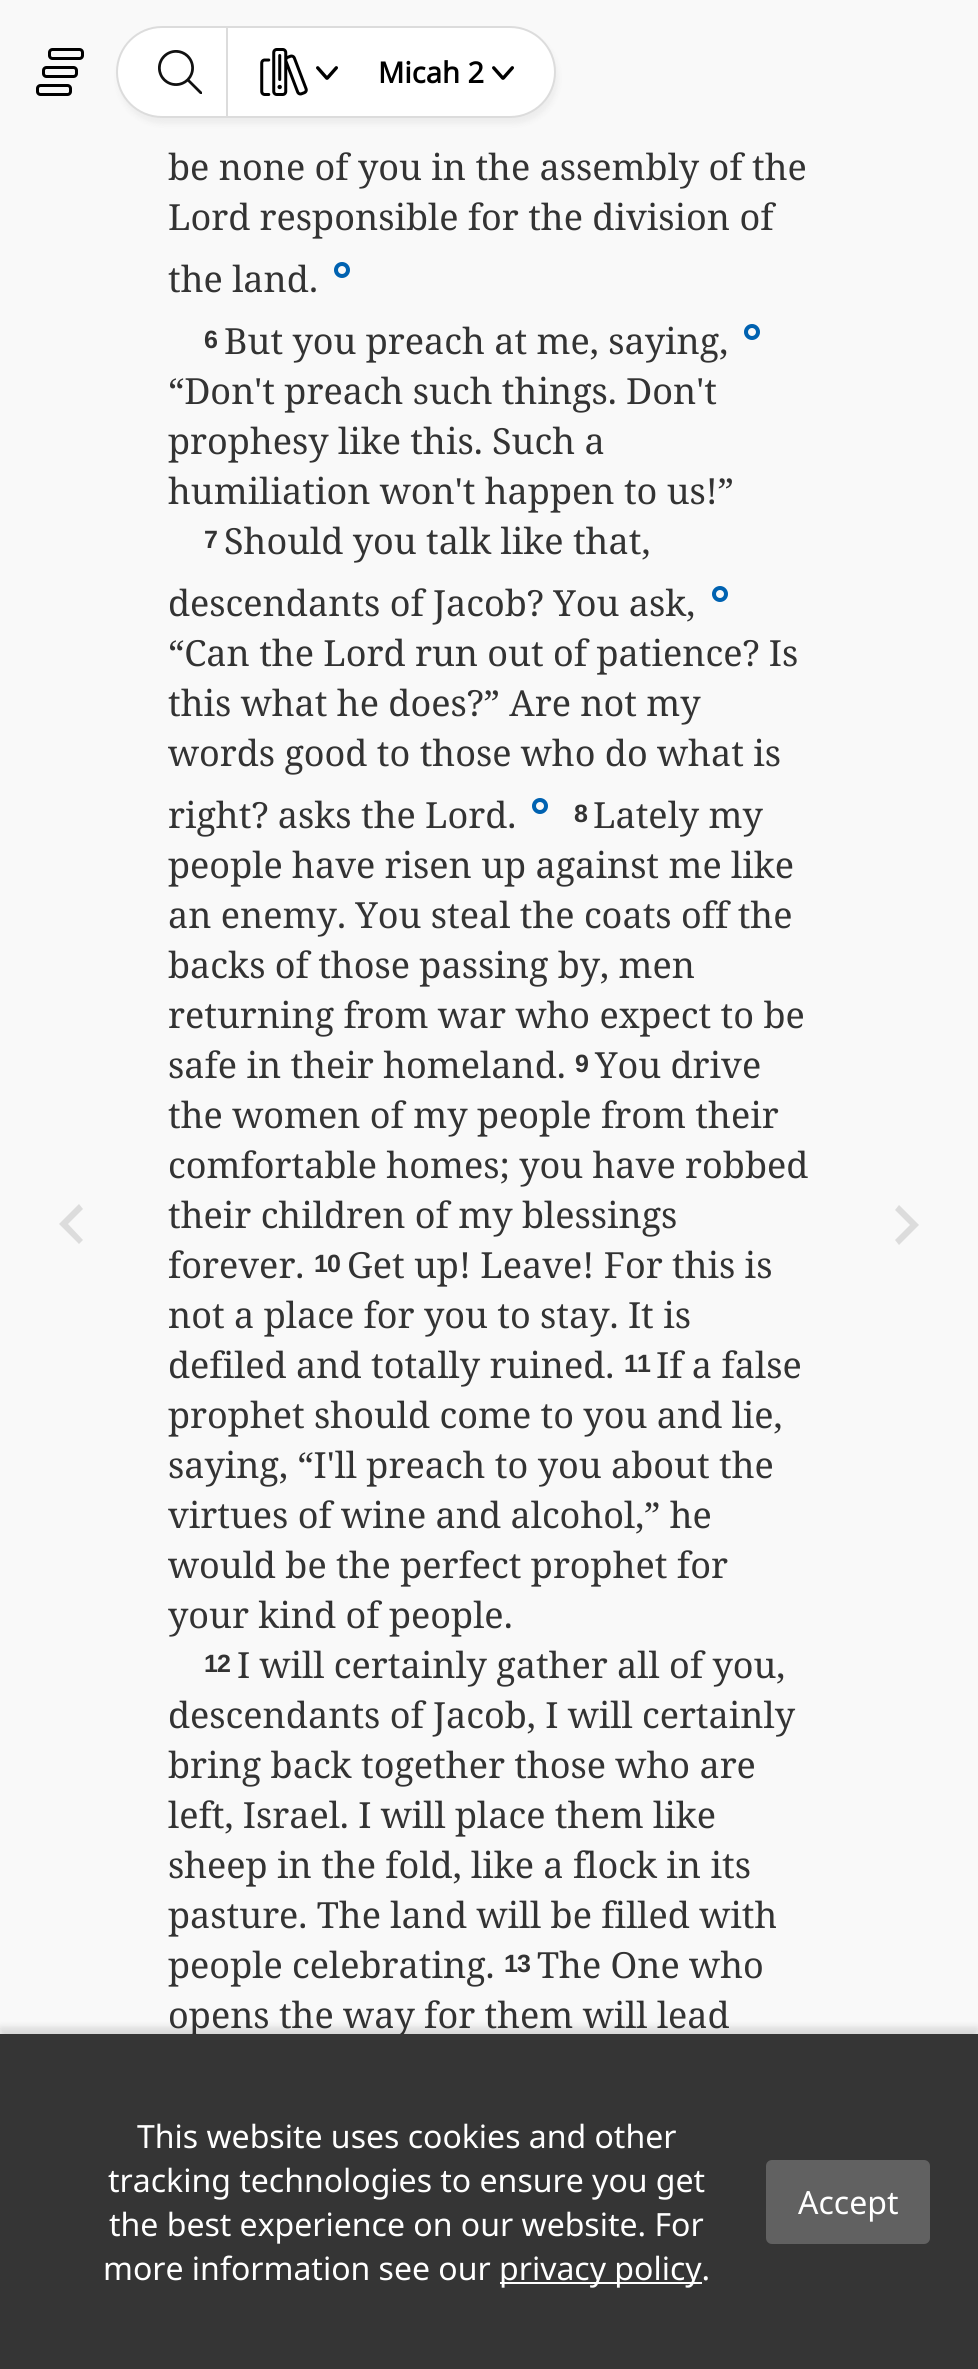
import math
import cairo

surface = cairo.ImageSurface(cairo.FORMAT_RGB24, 978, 2369)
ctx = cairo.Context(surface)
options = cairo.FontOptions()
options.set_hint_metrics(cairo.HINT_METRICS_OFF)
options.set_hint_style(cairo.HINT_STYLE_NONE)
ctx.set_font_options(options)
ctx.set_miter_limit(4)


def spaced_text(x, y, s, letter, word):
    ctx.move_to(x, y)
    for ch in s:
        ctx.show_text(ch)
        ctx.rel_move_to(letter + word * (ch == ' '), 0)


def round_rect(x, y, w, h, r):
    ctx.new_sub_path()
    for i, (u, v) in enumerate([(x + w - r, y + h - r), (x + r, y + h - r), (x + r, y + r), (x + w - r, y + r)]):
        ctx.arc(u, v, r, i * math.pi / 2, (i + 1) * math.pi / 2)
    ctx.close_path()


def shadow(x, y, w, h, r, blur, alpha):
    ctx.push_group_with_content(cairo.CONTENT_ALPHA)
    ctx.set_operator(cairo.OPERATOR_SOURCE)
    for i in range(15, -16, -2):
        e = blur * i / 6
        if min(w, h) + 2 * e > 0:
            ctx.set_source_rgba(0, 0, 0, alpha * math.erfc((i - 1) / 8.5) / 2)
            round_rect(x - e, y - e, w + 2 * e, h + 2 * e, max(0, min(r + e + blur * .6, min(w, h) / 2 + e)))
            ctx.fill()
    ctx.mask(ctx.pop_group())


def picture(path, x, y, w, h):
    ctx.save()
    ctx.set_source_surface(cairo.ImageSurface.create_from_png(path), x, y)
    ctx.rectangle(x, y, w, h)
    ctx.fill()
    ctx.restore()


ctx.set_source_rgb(0.973, 0.973, 0.973)
ctx.paint()
picture("img1.png", 36, 48, 48, 48)
ctx.set_source_rgb(0, 0, 0)
shadow(118, 32, 440, 92, 46, 3, 0.05)
ctx.set_source_rgb(1, 1, 1)
round_rect(117, 27, 438, 90, 45)
ctx.fill_preserve()
ctx.set_source_rgb(0.863, 0.863, 0.863)
ctx.stroke()
ctx.rectangle(226, 28, 2, 88)
ctx.fill()
picture("img2.png", 158, 50, 44, 44)
picture("img3.png", 260, 48, 48, 48)
picture("img4.png", 316, 66, 22, 14)
ctx.select_font_face("Noto Sans", cairo.FONT_SLANT_NORMAL, cairo.FONT_WEIGHT_BOLD)
ctx.set_font_size(29)
ctx.set_source_rgb(0, 0, 0)
ctx.move_to(378, 83)
ctx.show_text("Micah 2")
picture("img4.png", 492, 66, 22, 14)
ctx.set_source_rgb(0.863, 0.863, 0.863)
ctx.new_path()
ctx.move_to(83, 1240)
ctx.line_to(68, 1224)
ctx.line_to(83, 1209)
ctx.line_to(79, 1204)
ctx.line_to(59, 1224)
ctx.line_to(79, 1244)
ctx.close_path()
ctx.fill()
ctx.select_font_face("Noto Serif")
ctx.set_font_size(36)
ctx.set_source_rgb(0.2, 0.2, 0.2)
ctx.move_to(168, 180)
ctx.show_text("be none of you in the assembly of the")
ctx.move_to(168, 230)
ctx.show_text("Lord responsible for the division of")
ctx.move_to(168, 292)
ctx.show_text("the land.")
picture("img5.png", 334, 262, 16, 16)
ctx.select_font_face("Liberation Sans", cairo.FONT_SLANT_NORMAL, cairo.FONT_WEIGHT_BOLD)
ctx.set_font_size(25)
spaced_text(204, 348, "6", -1, 0)
ctx.select_font_face("Noto Serif")
ctx.set_font_size(36)
ctx.move_to(224, 354)
ctx.show_text("But you preach at me, saying,")
picture("img5.png", 744, 324, 16, 16)
ctx.move_to(168, 404)
ctx.show_text("“Don't preach such things. Don't")
ctx.move_to(168, 454)
ctx.show_text("prophesy like this. Such a")
ctx.move_to(168, 504)
ctx.show_text("humiliation won't happen to us!”")
ctx.select_font_face("Liberation Sans", cairo.FONT_SLANT_NORMAL, cairo.FONT_WEIGHT_BOLD)
ctx.set_font_size(25)
spaced_text(204, 548, "7", -1, 0)
ctx.select_font_face("Noto Serif")
ctx.set_font_size(36)
ctx.move_to(224, 554)
ctx.show_text("Should you talk like that,")
ctx.move_to(168, 616)
ctx.show_text("descendants of Jacob? You ask,")
picture("img5.png", 712, 586, 16, 16)
ctx.move_to(168, 666)
ctx.show_text("“Can the Lord run out of patience? Is")
ctx.move_to(168, 716)
ctx.show_text("this what he does?” Are not my")
ctx.move_to(168, 766)
ctx.show_text("words good to those who do what is")
ctx.move_to(168, 828)
ctx.show_text("right? asks the Lord.")
picture("img5.png", 532, 798, 16, 16)
ctx.select_font_face("Liberation Sans", cairo.FONT_SLANT_NORMAL, cairo.FONT_WEIGHT_BOLD)
ctx.set_font_size(25)
spaced_text(574, 822, "8", -1, 0)
ctx.select_font_face("Noto Serif")
ctx.set_font_size(36)
ctx.move_to(593, 828)
ctx.show_text("Lately my")
ctx.move_to(168, 878)
ctx.show_text("people have risen up against me like")
ctx.move_to(168, 928)
ctx.show_text("an enemy. You steal the coats off the")
ctx.move_to(168, 978)
ctx.show_text("backs of those passing by, men")
ctx.move_to(168, 1028)
ctx.show_text("returning from war who expect to be")
ctx.move_to(168, 1078)
ctx.show_text("safe in their homeland.")
ctx.select_font_face("Liberation Sans", cairo.FONT_SLANT_NORMAL, cairo.FONT_WEIGHT_BOLD)
ctx.set_font_size(25)
spaced_text(575, 1072, "9", -1, 0)
ctx.select_font_face("Noto Serif")
ctx.set_font_size(36)
ctx.move_to(595, 1078)
ctx.show_text("You drive")
ctx.move_to(168, 1128)
ctx.show_text("the women of my people from their")
ctx.move_to(168, 1178)
ctx.show_text("comfortable homes; you have robbed")
ctx.move_to(168, 1228)
ctx.show_text("their children of my blessings")
ctx.move_to(168, 1278)
ctx.show_text("forever.")
ctx.select_font_face("Liberation Sans", cairo.FONT_SLANT_NORMAL, cairo.FONT_WEIGHT_BOLD)
ctx.set_font_size(25)
spaced_text(314, 1272, "10", -1, 0)
ctx.select_font_face("Noto Serif")
ctx.set_font_size(36)
ctx.move_to(347, 1278)
ctx.show_text("Get up! Leave! For this is")
ctx.move_to(168, 1328)
ctx.show_text("not a place for you to stay. It is")
ctx.move_to(168, 1378)
ctx.show_text("defiled and totally ruined.")
ctx.select_font_face("Liberation Sans", cairo.FONT_SLANT_NORMAL, cairo.FONT_WEIGHT_BOLD)
ctx.set_font_size(25)
spaced_text(624, 1372, "11", -1, 0)
ctx.select_font_face("Noto Serif")
ctx.set_font_size(36)
ctx.move_to(656, 1378)
ctx.show_text("If a false")
ctx.move_to(168, 1428)
ctx.show_text("prophet should come to you and lie,")
ctx.move_to(168, 1478)
ctx.show_text("saying, “I'll preach to you about the")
ctx.move_to(168, 1528)
ctx.show_text("virtues of wine and alcohol,” he")
ctx.move_to(168, 1578)
ctx.show_text("would be the perfect prophet for")
ctx.move_to(168, 1628)
ctx.show_text("your kind of people.")
ctx.select_font_face("Liberation Sans", cairo.FONT_SLANT_NORMAL, cairo.FONT_WEIGHT_BOLD)
ctx.set_font_size(25)
spaced_text(204, 1672, "12", -1, 0)
ctx.select_font_face("Noto Serif")
ctx.set_font_size(36)
ctx.move_to(237, 1678)
ctx.show_text("I will certainly gather all of you,")
ctx.move_to(168, 1728)
ctx.show_text("descendants of Jacob, I will certainly")
ctx.move_to(168, 1778)
ctx.show_text("bring back together those who are")
ctx.move_to(168, 1828)
ctx.show_text("left, Israel. I will place them like")
ctx.move_to(168, 1878)
ctx.show_text("sheep in the fold, like a flock in its")
ctx.move_to(168, 1928)
ctx.show_text("pasture. The land will be filled with")
ctx.move_to(168, 1978)
ctx.show_text("people celebrating.")
ctx.select_font_face("Liberation Sans", cairo.FONT_SLANT_NORMAL, cairo.FONT_WEIGHT_BOLD)
ctx.set_font_size(25)
spaced_text(504, 1972, "13", -1, 0)
ctx.select_font_face("Noto Serif")
ctx.set_font_size(36)
ctx.move_to(537, 1978)
ctx.show_text("The One who")
ctx.move_to(168, 2028)
ctx.show_text("opens the way for them will lead")
ctx.set_source_rgb(0.863, 0.863, 0.863)
ctx.new_path()
ctx.move_to(895, 1240)
ctx.line_to(910, 1225)
ctx.line_to(895, 1210)
ctx.line_to(899, 1205)
ctx.line_to(919, 1225)
ctx.line_to(899, 1245)
ctx.close_path()
ctx.fill()
ctx.set_source_rgb(0, 0, 0)
shadow(0, 2028, 978, 336, 0, 4, 0.15)
ctx.set_source_rgb(0.208, 0.208, 0.208)
ctx.rectangle(0, 2034, 978, 335)
ctx.fill()
ctx.select_font_face("Noto Sans")
ctx.set_font_size(32)
ctx.set_source_rgb(1, 1, 1)
ctx.move_to(137, 2148)
ctx.show_text("This website uses cookies and other")
ctx.move_to(108, 2192)
ctx.show_text("tracking technologies to ensure you get")
ctx.move_to(109, 2236)
ctx.show_text("the best experience on our website. For")
ctx.move_to(103, 2280)
ctx.show_text("more information see our")
ctx.rectangle(500, 2282, 202, 2)
ctx.fill()
ctx.move_to(499, 2280)
ctx.show_text("privacy policy.")
ctx.set_source_rgb(0.38, 0.38, 0.38)
round_rect(766, 2160, 164, 84, 6)
ctx.fill()
ctx.set_source_rgb(1, 1, 1)
ctx.move_to(798, 2214)
ctx.show_text("Accept")
surface.write_to_png("page.png")
